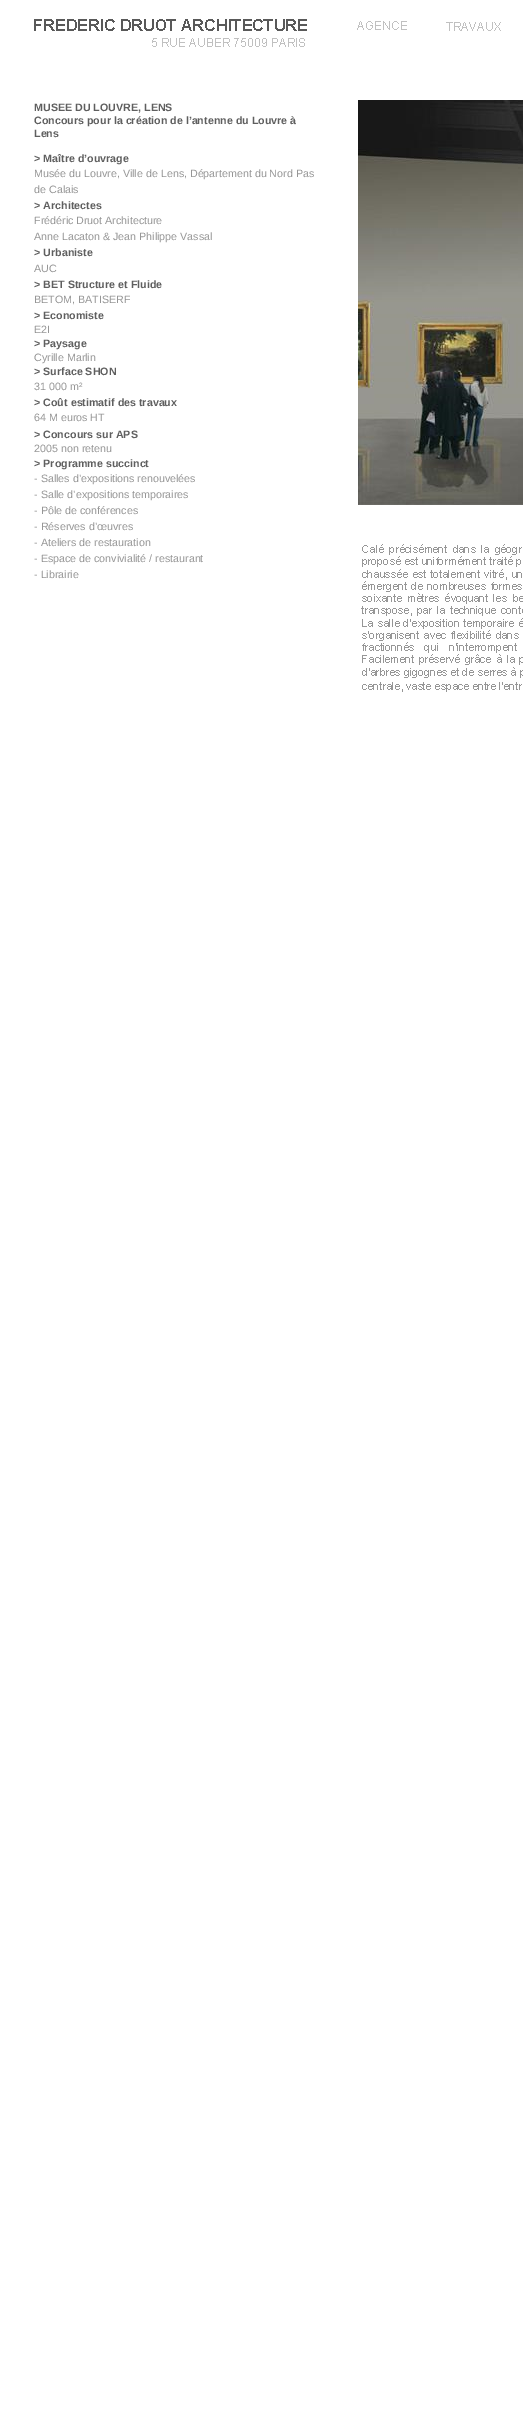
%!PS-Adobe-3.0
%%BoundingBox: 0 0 523 2424
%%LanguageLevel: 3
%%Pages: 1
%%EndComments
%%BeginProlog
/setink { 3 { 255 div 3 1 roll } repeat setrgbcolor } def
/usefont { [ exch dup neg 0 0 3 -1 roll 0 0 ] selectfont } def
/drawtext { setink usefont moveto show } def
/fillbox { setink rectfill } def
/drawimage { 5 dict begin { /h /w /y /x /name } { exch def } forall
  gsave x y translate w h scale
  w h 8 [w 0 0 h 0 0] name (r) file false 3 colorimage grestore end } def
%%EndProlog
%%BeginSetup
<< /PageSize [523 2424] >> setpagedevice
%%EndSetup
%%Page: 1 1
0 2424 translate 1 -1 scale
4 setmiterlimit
0 0 523 2424 255 255 255 fillbox
(assets/img1.rgb) 34 19 467 28 drawimage
(MUSEE DU LOUVRE, LENS) 34 111 /LiberationSans-Bold 10.7 95 95 95 drawtext
(Concours pour la création de l’antenne du Louvre à) 34 124 /LiberationSans-Bold 10.7 95 95 95 drawtext
(Lens) 34 137 /LiberationSans-Bold 10.7 95 95 95 drawtext
(> Maître d’ouvrage) 34 162 /LiberationSans-Bold 10.7 95 95 95 drawtext
(Musée du Louvre, Ville de Lens, Département du Nord Pas) 34 177 /LiberationSans-Regular 10.7 150 150 150 drawtext
(de Calais) 34 193 /LiberationSans-Regular 10.7 150 150 150 drawtext
(> Architectes) 34 209 /LiberationSans-Bold 10.7 95 95 95 drawtext
(Frédéric Druot Architecture) 34 224 /LiberationSans-Regular 10.7 150 150 150 drawtext
(Anne Lacaton & Jean Philippe Vassal) 34 240 /LiberationSans-Regular 10.7 150 150 150 drawtext
(> Urbaniste) 34 256 /LiberationSans-Bold 10.7 95 95 95 drawtext
(AUC) 34 272 /LiberationSans-Regular 10.7 150 150 150 drawtext
(> BET Structure et Fluide) 34 288 /LiberationSans-Bold 10.7 95 95 95 drawtext
(BETOM, BATISERF) 34 303 /LiberationSans-Regular 10.7 150 150 150 drawtext
(> Economiste) 34 319 /LiberationSans-Bold 10.7 95 95 95 drawtext
(E2I) 34 333 /LiberationSans-Regular 10.7 150 150 150 drawtext
(> Paysage) 34 347 /LiberationSans-Bold 10.7 95 95 95 drawtext
(Cyrille Marlin) 34 361 /LiberationSans-Regular 10.7 150 150 150 drawtext
(> Surface SHON) 34 375 /LiberationSans-Bold 10.7 95 95 95 drawtext
(31 000 m²) 34 390 /LiberationSans-Regular 10.7 150 150 150 drawtext
(> Coût estimatif des travaux) 34 406 /LiberationSans-Bold 10.7 95 95 95 drawtext
(64 M euros HT) 34 421 /LiberationSans-Regular 10.7 150 150 150 drawtext
(> Concours sur APS) 34 438 /LiberationSans-Bold 10.7 95 95 95 drawtext
(2005 non retenu) 34 452 /LiberationSans-Regular 10.7 150 150 150 drawtext
(> Programme succinct) 34 467 /LiberationSans-Bold 10.7 95 95 95 drawtext
(- Salles d’expositions renouvelées) 34 482 /LiberationSans-Regular 10.7 150 150 150 drawtext
(- Salle d’expositions temporaires) 34 498 /LiberationSans-Regular 10.7 150 150 150 drawtext
(- Pôle de conférences) 34 514 /LiberationSans-Regular 10.7 150 150 150 drawtext
(- Réserves d’œuvres) 34 530 /LiberationSans-Regular 10.7 150 150 150 drawtext
(- Ateliers de restauration) 34 546 /LiberationSans-Regular 10.7 150 150 150 drawtext
(- Espace de convivialité / restaurant) 34 562 /LiberationSans-Regular 10.7 150 150 150 drawtext
(- Librairie) 34 578 /LiberationSans-Regular 10.7 150 150 150 drawtext
(assets/img2.rgb) 358 100 165 592 drawimage
showpage
%%EOF
